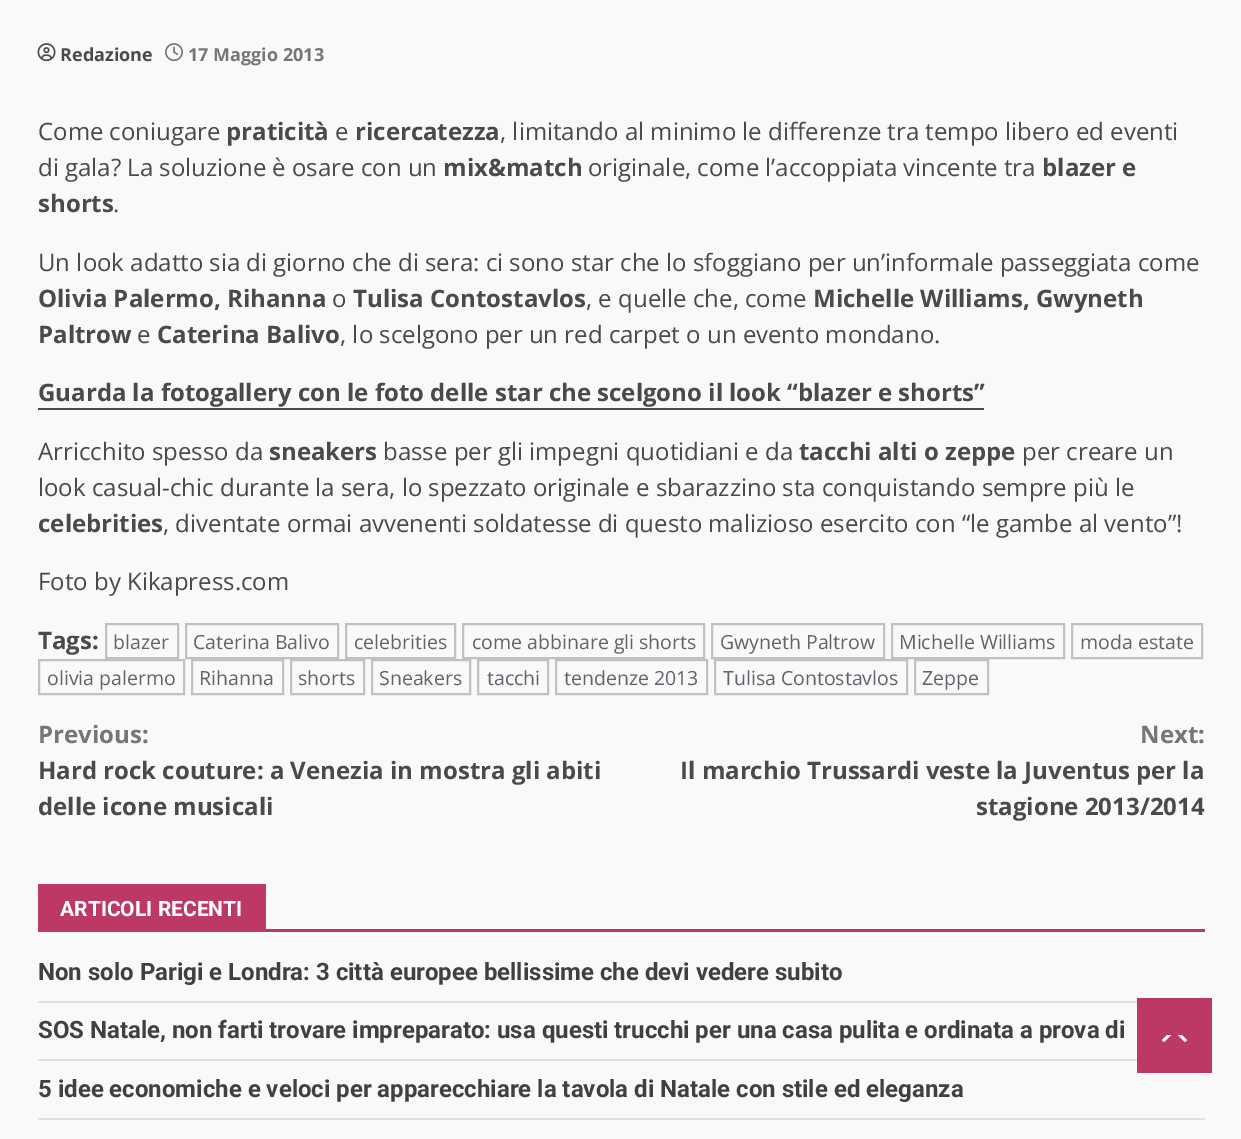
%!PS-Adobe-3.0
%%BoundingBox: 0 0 1241 1139
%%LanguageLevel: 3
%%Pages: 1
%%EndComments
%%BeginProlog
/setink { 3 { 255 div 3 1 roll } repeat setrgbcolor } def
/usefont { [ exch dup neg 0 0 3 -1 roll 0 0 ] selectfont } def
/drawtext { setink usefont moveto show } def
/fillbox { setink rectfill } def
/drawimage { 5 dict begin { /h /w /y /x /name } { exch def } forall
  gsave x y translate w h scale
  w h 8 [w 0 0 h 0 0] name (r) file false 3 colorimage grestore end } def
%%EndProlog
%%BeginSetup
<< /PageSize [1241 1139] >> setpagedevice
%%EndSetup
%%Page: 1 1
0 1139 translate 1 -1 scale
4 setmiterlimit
0 0 1241 1139 249 249 249 fillbox
(assets/img1.rgb) 37 43 19 19 drawimage
(Redazione) 60 61 /OpenSans-Bold 18 74 74 74 drawtext
(assets/img2.rgb) 165 43 18 19 drawimage
(17 Maggio 2013) 188 61 /OpenSans-Bold 18 118 118 118 drawtext
(Come coniugare) 38 140 /OpenSans-Regular 24 74 74 74 drawtext
(praticità) 226 140 /OpenSans-Bold 24 74 74 74 drawtext
(e) 335 140 /OpenSans-Regular 24 74 74 74 drawtext
(ricercatezza) 355 140 /OpenSans-Bold 24 74 74 74 drawtext
(, limitando al minimo le differenze tra tempo libero ed eventi) 500 140 /OpenSans-Regular 24 74 74 74 drawtext
(di gala? La soluzione è osare con un) 38 176 /OpenSans-Regular 24 74 74 74 drawtext
(mix&match) 443 176 /OpenSans-Bold 24 74 74 74 drawtext
(originale, come l’accoppiata vincente tra) 588 176 /OpenSans-Regular 24 74 74 74 drawtext
(blazer e) 1042 176 /OpenSans-Bold 24 74 74 74 drawtext
(shorts) 38 212 /OpenSans-Bold 24 74 74 74 drawtext
(.) 113 212 /OpenSans-Regular 24 74 74 74 drawtext
(Un look adatto sia di giorno che di sera: ci sono star che lo sfoggiano per un’informale passeggiata come) 38 271 /OpenSans-Regular 24 74 74 74 drawtext
(Olivia Palermo, Rihanna) 38 307 /OpenSans-Bold 24 74 74 74 drawtext
(o) 332 307 /OpenSans-Regular 24 74 74 74 drawtext
(Tulisa Contostavlos) 353 307 /OpenSans-Bold 24 74 74 74 drawtext
(, e quelle che, come) 586 307 /OpenSans-Regular 24 74 74 74 drawtext
(Michelle Williams, Gwyneth) 813 307 /OpenSans-Bold 24 74 74 74 drawtext
(Paltrow) 38 343 /OpenSans-Bold 24 74 74 74 drawtext
(e) 137 343 /OpenSans-Regular 24 74 74 74 drawtext
(Caterina Balivo) 157 343 /OpenSans-Bold 24 74 74 74 drawtext
(, lo scelgono per un red carpet o un evento mondano.) 340 343 /OpenSans-Regular 24 74 74 74 drawtext
(Guarda la fotogallery con le foto delle star che scelgono il look “blazer e shorts”) 38 401 /OpenSans-Bold 24 74 74 74 drawtext
38 408 946 2 74 74 74 fillbox
(Arricchito spesso da) 38 460 /OpenSans-Regular 24 74 74 74 drawtext
(sneakers) 269 460 /OpenSans-Bold 24 74 74 74 drawtext
(basse per gli impegni quotidiani e da) 383 460 /OpenSans-Regular 24 74 74 74 drawtext
(tacchi alti o zeppe) 799 460 /OpenSans-Bold 24 74 74 74 drawtext
(per creare un) 1022 460 /OpenSans-Regular 24 74 74 74 drawtext
(look casual-chic durante la sera, lo spezzato originale e sbarazzino sta conquistando sempre più le) 38 496 /OpenSans-Regular 24 74 74 74 drawtext
(celebrities) 38 532 /OpenSans-Bold 24 74 74 74 drawtext
(, diventate ormai avvenenti soldatesse di questo malizioso esercito con “le gambe al vento”!) 163 532 /OpenSans-Regular 24 74 74 74 drawtext
(Foto by Kikapress.com) 38 590 /OpenSans-Regular 24 74 74 74 drawtext
(Tags:) 38 649 /OpenSans-Bold 24 74 74 74 drawtext
191 193 195 setink
2 setlinewidth
106 624 72 34 rectstroke
(blazer) 113 649 /OpenSans-Regular 19.5 95 99 106 drawtext
191 193 195 setink
186 624 152 34 rectstroke
(Caterina Balivo) 193 649 /OpenSans-Regular 19.5 95 99 106 drawtext
191 193 195 setink
346 624 109 34 rectstroke
(celebrities) 354 649 /OpenSans-Regular 19.5 95 99 106 drawtext
191 193 195 setink
463 624 241 34 rectstroke
(come abbinare gli shorts) 472 649 /OpenSans-Regular 19.5 95 99 106 drawtext
191 193 195 setink
712 624 172 34 rectstroke
(Gwyneth Paltrow) 720 649 /OpenSans-Regular 19.5 95 99 106 drawtext
191 193 195 setink
892 624 172 34 rectstroke
(Michelle Williams) 899 649 /OpenSans-Regular 19.5 95 99 106 drawtext
191 193 195 setink
1072 624 130 34 rectstroke
(moda estate) 1080 649 /OpenSans-Regular 19.5 95 99 106 drawtext
191 193 195 setink
39 660 145 34 rectstroke
(olivia palermo) 47 685 /OpenSans-Regular 19.5 95 99 106 drawtext
191 193 195 setink
192 660 91 34 rectstroke
(Rihanna) 199 685 /OpenSans-Regular 19.5 95 99 106 drawtext
191 193 195 setink
291 660 73 34 rectstroke
(shorts) 298 685 /OpenSans-Regular 19.5 95 99 106 drawtext
191 193 195 setink
372 660 98 34 rectstroke
(Sneakers) 379 685 /OpenSans-Regular 19.5 95 99 106 drawtext
191 193 195 setink
478 660 70 34 rectstroke
(tacchi) 487 685 /OpenSans-Regular 19.5 95 99 106 drawtext
191 193 195 setink
556 660 151 34 rectstroke
(tendenze 2013) 564 685 /OpenSans-Regular 19.5 95 99 106 drawtext
191 193 195 setink
715 660 192 34 rectstroke
(Tulisa Contostavlos) 723 685 /OpenSans-Regular 19.5 95 99 106 drawtext
191 193 195 setink
915 660 73 34 rectstroke
(Zeppe) 922 685 /OpenSans-Regular 19.5 95 99 106 drawtext
(Previous:) 38 743 /OpenSans-Bold 24 118 118 118 drawtext
(Hard rock couture: a Venezia in mostra gli abiti) 38 779 /OpenSans-Bold 24 74 74 74 drawtext
(delle icone musicali) 38 815 /OpenSans-Bold 24 74 74 74 drawtext
(Next:) 1140 743 /OpenSans-Bold 24 118 118 118 drawtext
(Il marchio Trussardi veste la Juventus per la) 680 779 /OpenSans-Bold 24 74 74 74 drawtext
(stagione 2013/2014) 976 815 /OpenSans-Bold 24 74 74 74 drawtext
38 929 1167 3 188 56 102 fillbox
38 884 228 45 188 56 102 fillbox
(ARTICOLI RECENTI) 60 916 /Roboto-Bold 21 255 255 255 drawtext
38 1001 1099 2 224 224 224 fillbox
(Non solo Parigi e Londra: 3 città europee bellissime che devi vedere subito) 38 980 /Roboto-Bold 24 64 64 64 drawtext
38 1059 1099 2 224 224 224 fillbox
(SOS Natale, non farti trovare impreparato: usa questi trucchi per una casa pulita e ordinata a prova di) 38 1038 /Roboto-Bold 24 64 64 64 drawtext
38 1118 1167 2 224 224 224 fillbox
(5 idee economiche e veloci per apparecchiare la tavola di Natale con stile ed eleganza) 38 1097 /Roboto-Bold 24 64 64 64 drawtext
1137 998 75 75 188 56 102 fillbox
255 255 255 setink
1167 1042.5 moveto 1182 1042.5 lineto 1184 1042.5 1186 1041.5 1187 1040 curveto 1182 1035 lineto 1167 1035 lineto 1162 1040 lineto 1163 1041.5 1165 1042.5 1167 1042.5 curveto closepath fill
188 56 102 setink
1189.5 1047 moveto 1159.5 1047 lineto 1174.5 1032 lineto closepath fill
showpage
%%EOF
